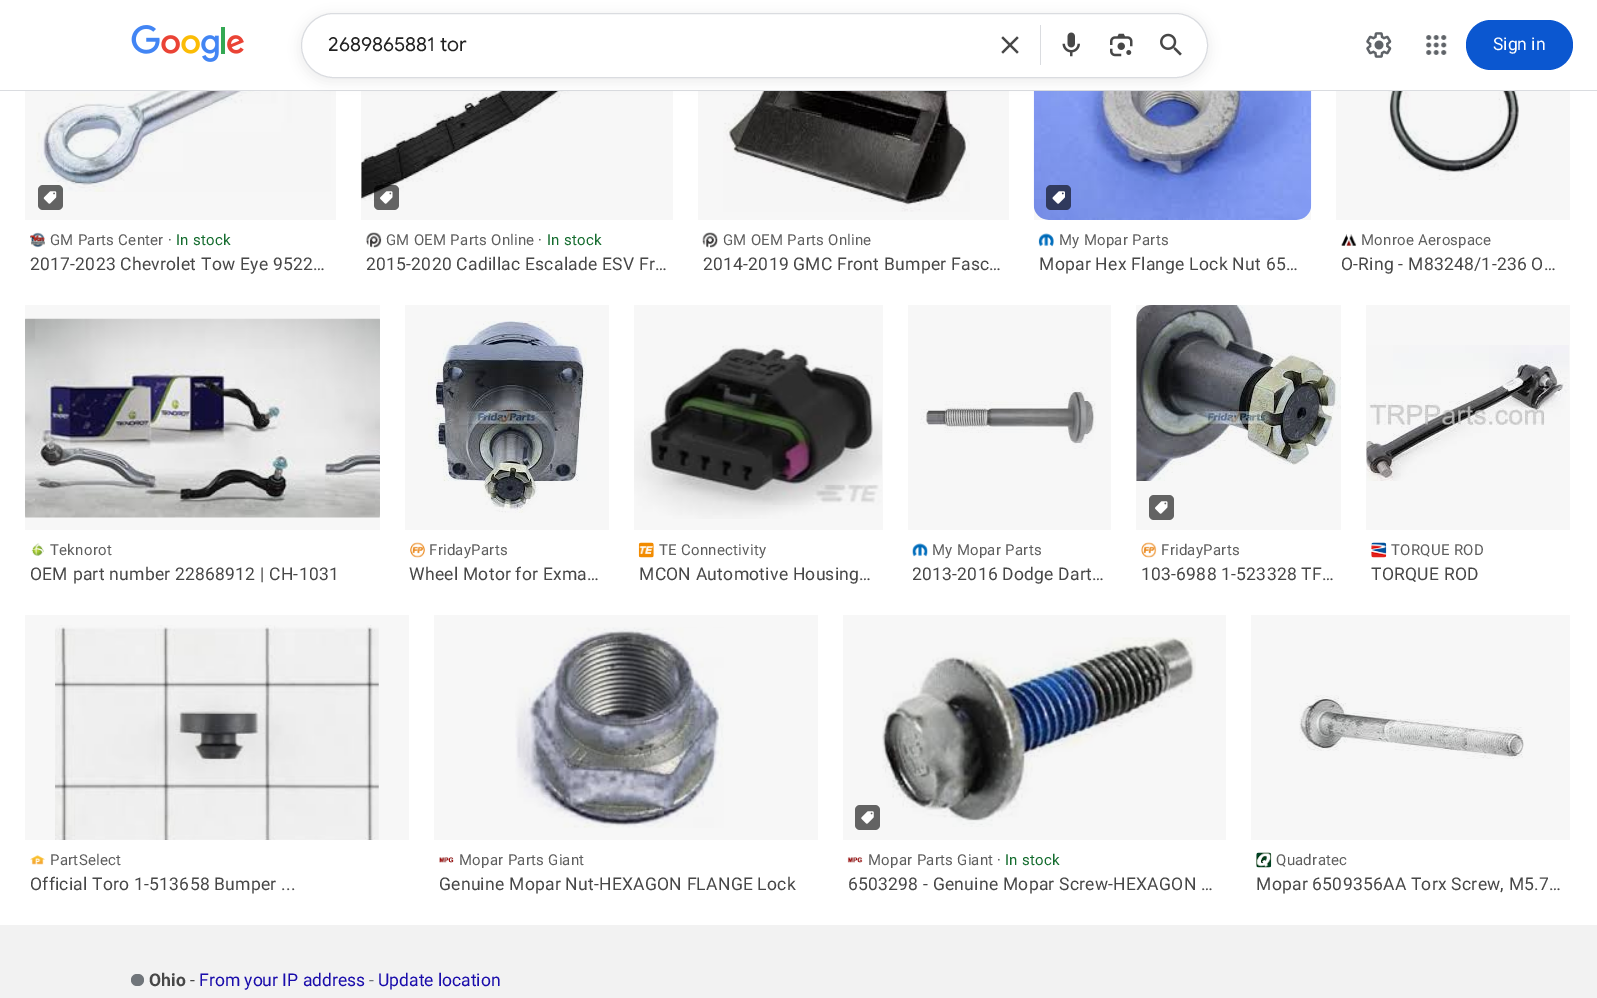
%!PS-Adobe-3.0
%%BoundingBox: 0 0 1597 998
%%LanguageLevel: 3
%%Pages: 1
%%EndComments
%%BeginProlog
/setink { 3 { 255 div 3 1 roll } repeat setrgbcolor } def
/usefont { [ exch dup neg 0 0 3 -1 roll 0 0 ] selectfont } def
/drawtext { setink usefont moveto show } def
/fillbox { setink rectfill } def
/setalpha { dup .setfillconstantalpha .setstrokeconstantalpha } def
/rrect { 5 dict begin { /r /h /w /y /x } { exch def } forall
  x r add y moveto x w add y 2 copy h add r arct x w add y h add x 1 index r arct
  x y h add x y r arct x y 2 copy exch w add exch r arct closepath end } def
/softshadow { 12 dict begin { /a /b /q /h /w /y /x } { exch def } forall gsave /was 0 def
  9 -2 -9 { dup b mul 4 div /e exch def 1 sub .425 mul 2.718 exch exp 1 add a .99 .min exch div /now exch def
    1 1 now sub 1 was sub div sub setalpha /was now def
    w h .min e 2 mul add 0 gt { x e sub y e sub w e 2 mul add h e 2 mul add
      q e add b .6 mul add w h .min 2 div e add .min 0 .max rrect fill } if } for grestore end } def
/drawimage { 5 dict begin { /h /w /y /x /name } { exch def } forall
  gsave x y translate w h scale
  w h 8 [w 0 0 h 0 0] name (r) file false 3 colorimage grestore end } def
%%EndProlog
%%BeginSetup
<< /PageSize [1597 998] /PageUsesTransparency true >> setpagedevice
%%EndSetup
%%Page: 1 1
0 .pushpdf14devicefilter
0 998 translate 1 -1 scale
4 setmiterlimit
0 0 1597 998 255 255 255 fillbox
0 90 1597 1 218 220 224 fillbox
(assets/img1.rgb) 131 25 113 37 drawimage
(assets/img8.rgb) 36 91 295 101 drawimage
0.03 setalpha
25 91 311 129 0 0 0 fillbox
1 setalpha
(assets/img11.rgb) 361 91 308 110 drawimage
0.03 setalpha
361 91 312 129 0 0 0 fillbox
1 setalpha
(assets/img14.rgb) 723 91 247 121 drawimage
0.03 setalpha
698 91 311 129 0 0 0 fillbox
1 setalpha
(assets/img16.rgb) 1033 91 279 129 drawimage
0.03 setalpha
1034 91 277 129 0 0 0 fillbox
1 setalpha
31 31 31 setink
301 16 907 65 32.5 6 0.08 softshadow
255 255 255 setink
301.5 13.5 906 64 32 rrect gsave fill grestore
218 220 224 setink
stroke
(2689865881 tor) 328 51 /GoogleSans-Regular 20 33 33 33 drawtext
(assets/img2.rgb) 1001 36 18 18 drawimage
1040 25 1 40 218 220 224 fillbox
(assets/img3.rgb) 1062 32 18 25 drawimage
(assets/img4.rgb) 1110 33 23 24 drawimage
(assets/img5.rgb) 1160 33 22 23 drawimage
(assets/img6.rgb) 1366 32 26 26 drawimage
(assets/img7.rgb) 1426 35 21 20 drawimage
11 87 208 setink
1466 20 107 50 25 rrect fill
(Sign in) 1493 50 /Roboto-Regular 17.5 255 255 255 drawtext
0.6 setalpha
0 0 0 setink
38 185 25 25 5 rrect fill
1 setalpha
(assets/img9.rgb) 43 191 14 13 drawimage
(assets/img10.rgb) 30 232 15 16 drawimage
/Roboto-Regular 15 usefont
94 94 94 setink
50 245 moveto 0.25 0 (GM Parts Center ·) ashow
20 108 46 setink
176 245 moveto 0.25 0 (In stock) ashow
/Roboto-Regular 17.5 usefont
71 71 71 setink
30 270 moveto 0.25 0 (2017-2023 Chevrolet Tow Eye 9522…) ashow
0.6 setalpha
0 0 0 setink
374 185 25 25 5 rrect fill
1 setalpha
(assets/img12.rgb) 380 191 13 13 drawimage
(assets/img13.rgb) 366 232 16 16 drawimage
/Roboto-Regular 15 usefont
94 94 94 setink
386 245 moveto 0.25 0 (GM OEM Parts Online ·) ashow
20 108 46 setink
547 245 moveto 0.25 0 (In stock) ashow
/Roboto-Regular 17.5 usefont
71 71 71 setink
366 270 moveto 0.25 0 (2015-2020 Cadillac Escalade ESV Fr…) ashow
(assets/img15.rgb) 702 232 16 16 drawimage
/Roboto-Regular 15 usefont
94 94 94 setink
723 245 moveto 0.25 0 (GM OEM Parts Online) ashow
/Roboto-Regular 17.5 usefont
71 71 71 setink
703 270 moveto 0.25 0 (2014-2019 GMC Front Bumper Fasc…) ashow
0.6 setalpha
0 0 0 setink
1046 185 25 25 5 rrect fill
1 setalpha
(assets/img17.rgb) 1052 191 13 13 drawimage
(assets/img18.rgb) 1038 233 16 14 drawimage
/Roboto-Regular 15 usefont
94 94 94 setink
1059 245 moveto 0.25 0 (My Mopar Parts) ashow
/Roboto-Regular 17.5 usefont
71 71 71 setink
1039 270 moveto 0.25 0 (Mopar Hex Flange Lock Nut 65…) ashow
(assets/img19.rgb) 1388 91 131 89 drawimage
0.03 setalpha
1336 91 234 129 0 0 0 fillbox
1 setalpha
(assets/img20.rgb) 1341 234 16 12 drawimage
/Roboto-Regular 15 usefont
94 94 94 setink
1361 245 moveto 0.25 0 (Monroe Aerospace) ashow
/Roboto-Regular 17.5 usefont
71 71 71 setink
1341 270 moveto 0.25 0 (O-Ring - M83248/1-236 O…) ashow
(assets/img21.rgb) 25 318 355 200 drawimage
0.03 setalpha
25 305 355 225 0 0 0 fillbox
1 setalpha
(assets/img22.rgb) 31 543 13 13 drawimage
/Roboto-Regular 15 usefont
94 94 94 setink
50 555 moveto 0.25 0 (Teknorot) ashow
/Roboto-Regular 17.5 usefont
71 71 71 setink
30 580 moveto 0.25 0 (OEM part number 22868912 | CH-1031) ashow
(assets/img23.rgb) 428 321 159 192 drawimage
0.03 setalpha
405 305 204 225 0 0 0 fillbox
1 setalpha
(assets/img24.rgb) 410 542 15 16 drawimage
/Roboto-Regular 15 usefont
94 94 94 setink
429 555 moveto 0.25 0 (FridayParts) ashow
/Roboto-Regular 17.5 usefont
71 71 71 setink
409 580 moveto 0.25 0 (Wheel Motor for Exma…) ashow
(assets/img25.rgb) 634 345 248 174 drawimage
0.03 setalpha
634 305 249 225 0 0 0 fillbox
1 setalpha
(assets/img26.rgb) 638 542 16 16 drawimage
/Roboto-Regular 15 usefont
94 94 94 setink
659 555 moveto 0.25 0 (TE Connectivity) ashow
/Roboto-Regular 17.5 usefont
71 71 71 setink
639 580 moveto 0.25 0 (MCON Automotive Housing…) ashow
(assets/img27.rgb) 920 387 176 62 drawimage
0.03 setalpha
908 305 203 225 0 0 0 fillbox
1 setalpha
(assets/img28.rgb) 912 543 16 14 drawimage
/Roboto-Regular 15 usefont
94 94 94 setink
932 555 moveto 0.25 0 (My Mopar Parts) ashow
gsave
913 560 193 28 rectclip
/Roboto-Regular 17.5 usefont
71 71 71 setink
912 580 moveto 0.25 0 (2013-2016 Dodge Dart…) ashow
grestore
(assets/img29.rgb) 1136 305 205 176 drawimage
0.03 setalpha
1136 305 205 225 0 0 0 fillbox
1 setalpha
99 99 99 setink
1149 495 25 25 5 rrect fill
(assets/img30.rgb) 1155 501 13 13 drawimage
(assets/img31.rgb) 1141 542 16 16 drawimage
94 94 94 setink
1161 555 moveto 0.25 0 (FridayParts) ashow
/Roboto-Regular 17.5 usefont
71 71 71 setink
1141 580 moveto 0.25 0 (103-6988 1-523328 TF…) ashow
(assets/img32.rgb) 1366 345 203 136 drawimage
0.03 setalpha
1366 305 204 225 0 0 0 fillbox
1 setalpha
(assets/img33.rgb) 1371 542 16 16 drawimage
/Roboto-Regular 15 usefont
94 94 94 setink
1391 555 moveto 0.25 0 (TORQUE ROD) ashow
/Roboto-Regular 17.5 usefont
71 71 71 setink
1371 580 moveto 0.25 0 (TORQUE ROD) ashow
(assets/img34.rgb) 55 625 324 215 drawimage
0.03 setalpha
25 615 384 225 0 0 0 fillbox
1 setalpha
(assets/img35.rgb) 30 855 15 10 drawimage
/Roboto-Regular 15 usefont
94 94 94 setink
50 865 moveto 0.25 0 (PartSelect) ashow
/Roboto-Regular 17.5 usefont
71 71 71 setink
30 890 moveto 0.25 0 (Official Toro 1-513658 Bumper ...) ashow
(assets/img36.rgb) 515 627 209 201 drawimage
0.03 setalpha
434 615 384 225 0 0 0 fillbox
1 setalpha
(assets/img37.rgb) 439 857 15 6 drawimage
/Roboto-Regular 15 usefont
94 94 94 setink
459 865 moveto 0.25 0 (Mopar Parts Giant) ashow
/Roboto-Regular 17.5 usefont
71 71 71 setink
439 890 moveto 0.25 0 (Genuine Mopar Nut-HEXAGON FLANGE Lock) ashow
(assets/img38.rgb) 882 637 314 190 drawimage
0.03 setalpha
843 615 383 225 0 0 0 fillbox
1 setalpha
99 99 99 setink
855 805 25 25 5 rrect fill
(assets/img39.rgb) 861 811 13 13 drawimage
(assets/img40.rgb) 847 857 16 6 drawimage
/Roboto-Regular 15 usefont
94 94 94 setink
868 865 moveto 0.25 0 (Mopar Parts Giant ·) ashow
20 108 46 setink
1005 865 moveto 0.25 0 (In stock) ashow
/Roboto-Regular 17.5 usefont
71 71 71 setink
848 890 moveto 0.25 0 (6503298 - Genuine Mopar Screw-HEXAGON …) ashow
(assets/img41.rgb) 1299 695 225 64 drawimage
0.03 setalpha
1251 615 319 225 0 0 0 fillbox
1 setalpha
(assets/img42.rgb) 1256 852 16 16 drawimage
/Roboto-Regular 15 usefont
94 94 94 setink
1276 865 moveto 0.25 0 (Quadratec) ashow
/Roboto-Regular 17.5 usefont
71 71 71 setink
1256 890 moveto 0.25 0 (Mopar 6509356AA Torx Screw, M5.7…) ashow
0 925 1597 73 242 242 242 fillbox
112 117 122 setink
131 974 13 12 6 rrect fill
(Ohio) 149 986 /Roboto-Bold 17.5 71 71 71 drawtext
(-) 190 986 /Roboto-Regular 17.5 71 71 71 drawtext
(From your IP address) 199 986 /Roboto-Regular 17.5 26 13 171 drawtext
(-) 369 986 /Roboto-Regular 17.5 112 117 122 drawtext
(Update location) 378 986 /Roboto-Regular 17.5 26 13 171 drawtext
.poppdf14devicefilter showpage
%%EOF
